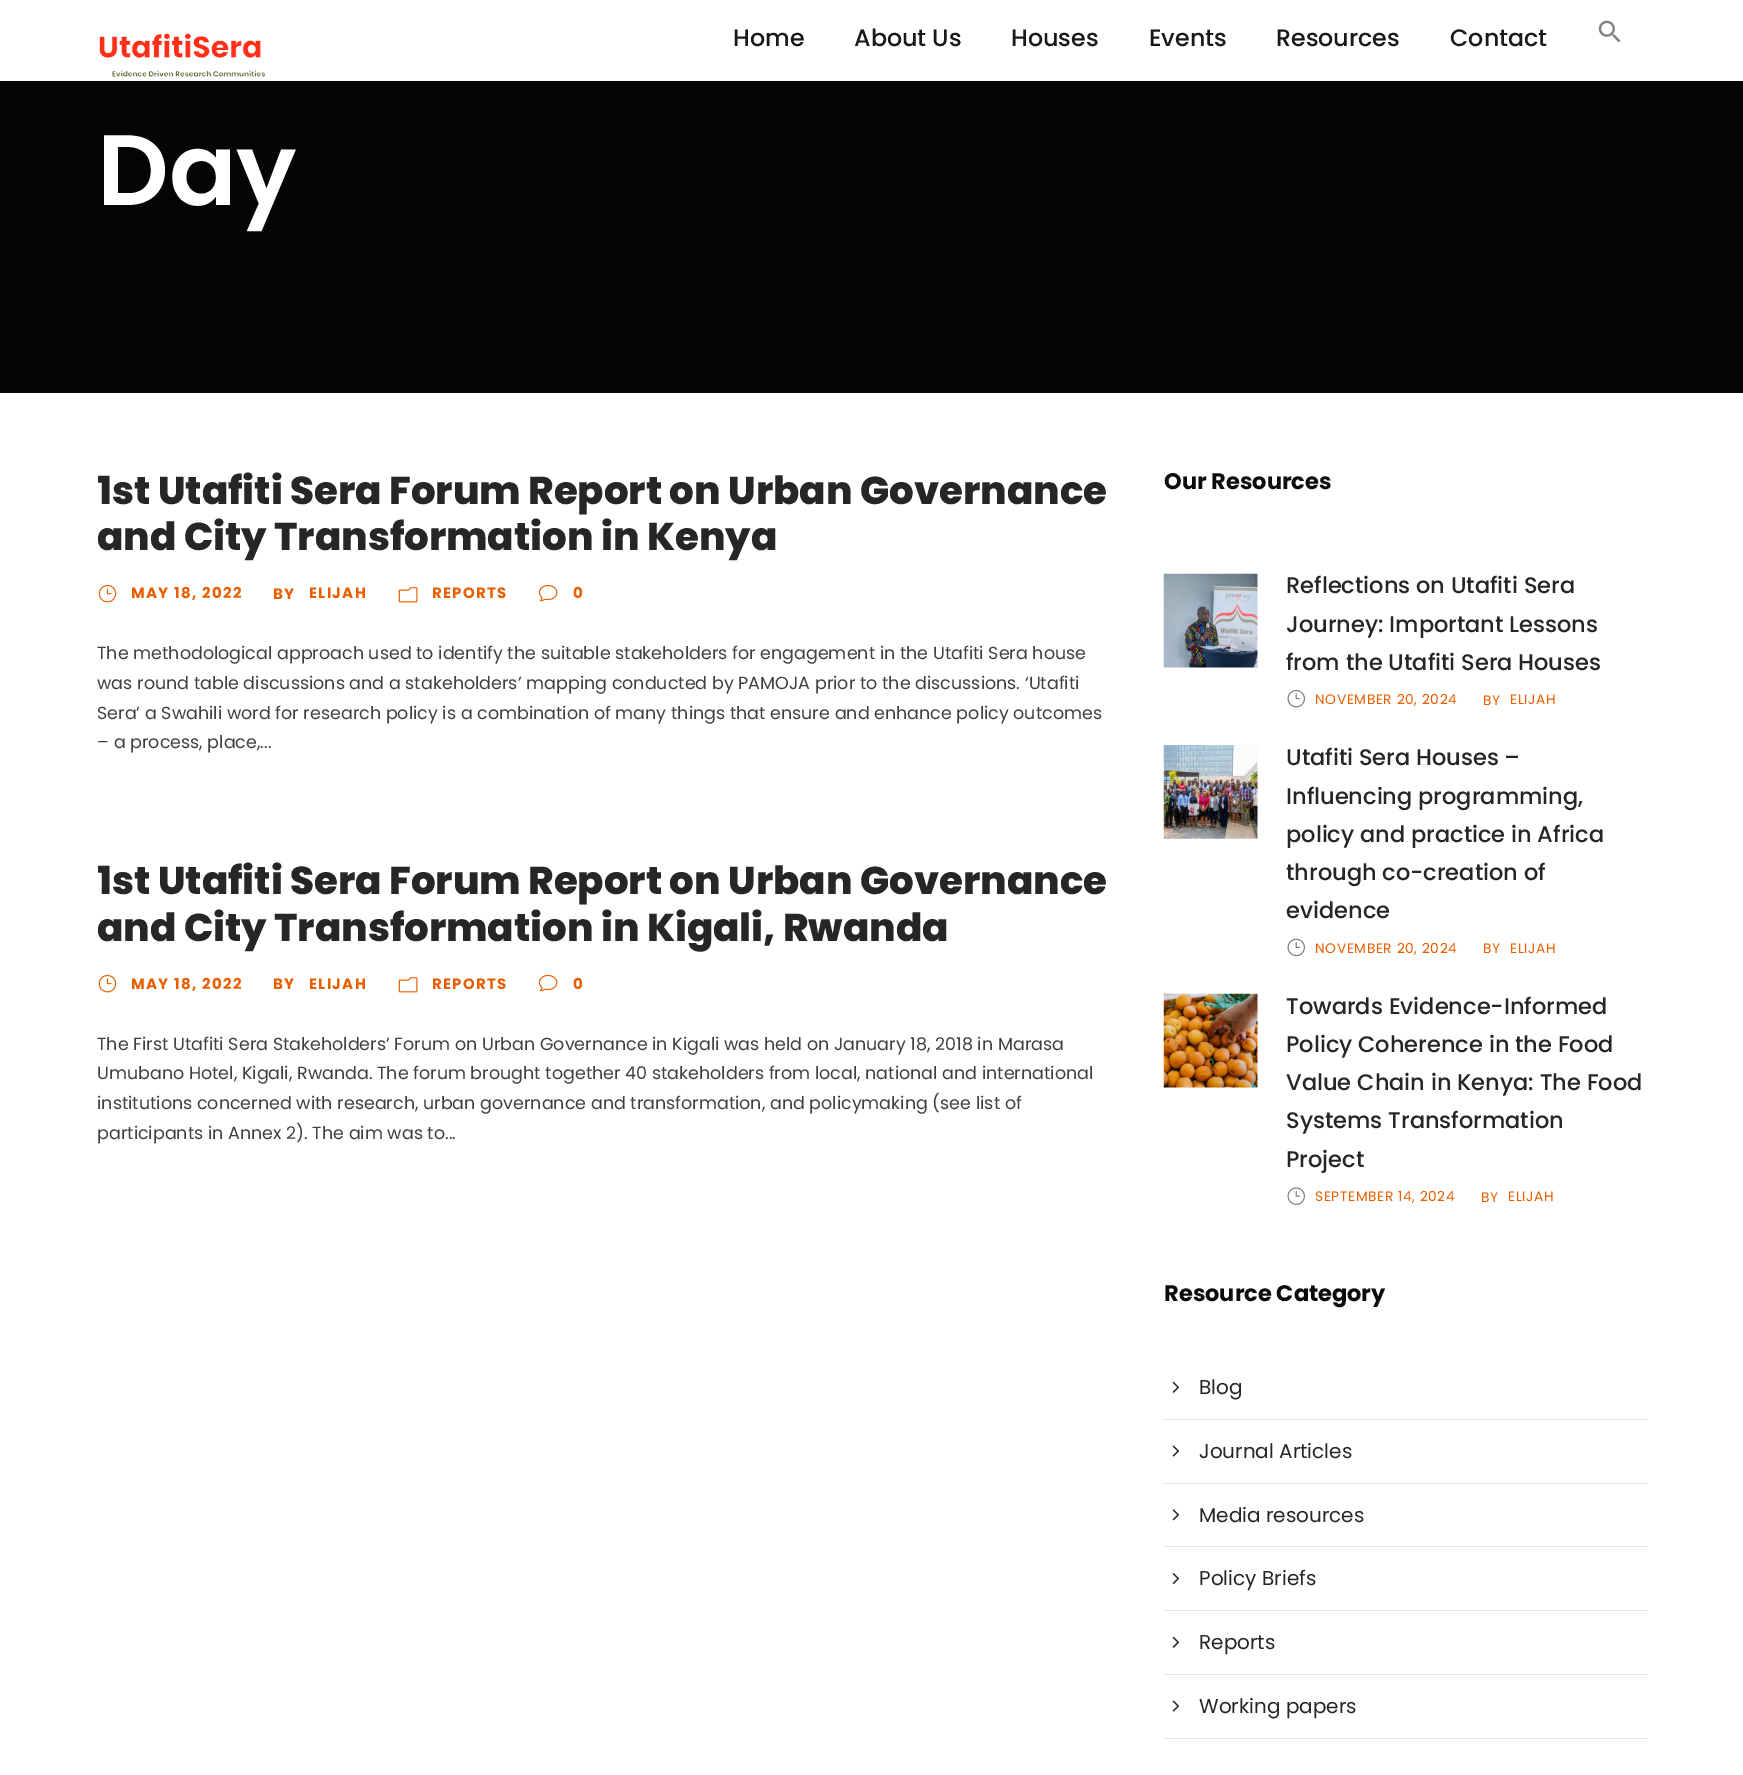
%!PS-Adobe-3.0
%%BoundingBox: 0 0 1743 1775
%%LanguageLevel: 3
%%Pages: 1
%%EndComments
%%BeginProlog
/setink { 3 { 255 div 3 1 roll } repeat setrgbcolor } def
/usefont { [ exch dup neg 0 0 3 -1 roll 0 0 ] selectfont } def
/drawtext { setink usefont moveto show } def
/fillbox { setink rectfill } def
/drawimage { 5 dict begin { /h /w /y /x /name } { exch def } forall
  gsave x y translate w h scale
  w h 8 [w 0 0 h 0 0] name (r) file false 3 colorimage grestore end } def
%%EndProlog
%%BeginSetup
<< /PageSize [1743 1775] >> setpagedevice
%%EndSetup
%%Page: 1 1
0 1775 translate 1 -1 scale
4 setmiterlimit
0 0 1743 1775 255 255 255 fillbox
(assets/img1.rgb) 99 33 166 44 drawimage
(Home) 733 46 /Poppins-Medium 23.75 25 25 25 drawtext
(About Us) 854 46 /Poppins-Medium 23.75 25 25 25 drawtext
(Houses) 1011 46 /Poppins-Medium 23.75 25 25 25 drawtext
(Events) 1149 46 /Poppins-Medium 23.75 25 25 25 drawtext
(Resources) 1276 46 /Poppins-Medium 23.75 25 25 25 drawtext
(Contact) 1450 46 /Poppins-Medium 23.75 25 25 25 drawtext
(assets/img2.rgb) 1598 20 23 23 drawimage
0 81 1743 312 5 5 5 fillbox
(Day) 97 205 /Poppins-SemiBold 100 255 255 255 drawtext
gsave
98 468 1016 140 rectclip
(1st Utafiti Sera Forum Report on Urban Governance) 97 504 /Poppins-ExtraBold 38.75 38 38 38 drawtext
(and City Transformation in Kenya) 97 550 /Poppins-ExtraBold 38.75 38 38 38 drawtext
grestore
(assets/img3.rgb) 98 584 19 19 drawimage
/Poppins-Bold 15 usefont
232 94 0 setink
131 598 moveto 1.25 0 (MAY 18, 2022) ashow
273 599 moveto 1.25 0 (BY) ashow
309 598 moveto 1.25 0 (ELIJAH) ashow
(assets/img4.rgb) 398 587 20 16 drawimage
432 598 moveto 1.25 0 (REPORTS) ashow
(assets/img5.rgb) 538 584 20 18 drawimage
573 598 moveto 1.25 0 (0) ashow
(The methodological approach used to identify the suitable stakeholders for engagement in the Utafiti Sera house) 97 659 /Poppins-Regular 17.5 63 64 63 drawtext
(was round table discussions and a stakeholders’ mapping conducted by PAMOJA prior to the discussions. ‘Utafiti) 97 689 /Poppins-Regular 17.5 63 64 63 drawtext
(Sera’ a Swahili word for research policy is a combination of many things that ensure and enhance policy outcomes) 97 719 /Poppins-Regular 17.5 63 64 63 drawtext
(– a process, place,...) 97 748 /Poppins-Regular 17.5 63 64 63 drawtext
gsave
98 858 1016 141 rectclip
(1st Utafiti Sera Forum Report on Urban Governance) 97 894 /Poppins-ExtraBold 38.75 38 38 38 drawtext
(and City Transformation in Kigali, Rwanda) 97 941 /Poppins-ExtraBold 38.75 38 38 38 drawtext
grestore
(assets/img3.rgb) 98 974 19 19 drawimage
/Poppins-Bold 15 usefont
232 94 0 setink
131 989 moveto 1.25 0 (MAY 18, 2022) ashow
273 989 moveto 1.25 0 (BY) ashow
309 989 moveto 1.25 0 (ELIJAH) ashow
(assets/img4.rgb) 398 977 20 16 drawimage
432 989 moveto 1.25 0 (REPORTS) ashow
(assets/img5.rgb) 538 974 20 18 drawimage
573 989 moveto 1.25 0 (0) ashow
(The First Utafiti Sera Stakeholders’ Forum on Urban Governance in Kigali was held on January 18, 2018 in Marasa) 97 1050 /Poppins-Regular 17.5 63 64 63 drawtext
(Umubano Hotel, Kigali, Rwanda. The forum brought together 40 stakeholders from local, national and international) 97 1079 /Poppins-Regular 17.5 63 64 63 drawtext
(institutions concerned with research, urban governance and transformation, and policymaking \(see list of) 97 1109 /Poppins-Regular 17.5 63 64 63 drawtext
(participants in Annex 2\). The aim was to...) 97 1139 /Poppins-Regular 17.5 63 64 63 drawtext
(Our Resources) 1164 489 /Poppins-Bold 22.5 12 12 12 drawtext
(assets/img6.rgb) 1163 573 95 95 drawimage
(Reflections on Utafiti Sera) 1286 593 /Poppins-Medium 22.5 38 38 38 drawtext
(Journey: Important Lessons) 1286 632 /Poppins-Medium 22.5 38 38 38 drawtext
(from the Utafiti Sera Houses) 1286 670 /Poppins-Medium 22.5 38 38 38 drawtext
(assets/img7.rgb) 1287 689 18 19 drawimage
/Poppins-Regular 13.75 usefont
232 94 0 setink
1315 704 moveto 0.6 0 (NOVEMBER 20, 2024) ashow
1483 705 moveto 0.6 0 (BY) ashow
1510 704 moveto 0.6 0 (ELIJAH) ashow
(assets/img8.rgb) 1163 745 95 94 drawimage
(Utafiti Sera Houses –) 1286 765 /Poppins-Medium 22.5 38 38 38 drawtext
(Influencing programming,) 1286 804 /Poppins-Medium 22.5 38 38 38 drawtext
(policy and practice in Africa) 1286 842 /Poppins-Medium 22.5 38 38 38 drawtext
(through co-creation of) 1286 880 /Poppins-Medium 22.5 38 38 38 drawtext
(evidence) 1286 918 /Poppins-Medium 22.5 38 38 38 drawtext
(assets/img9.rgb) 1287 938 18 19 drawimage
/Poppins-Regular 13.75 usefont
232 94 0 setink
1315 953 moveto 0.6 0 (NOVEMBER 20, 2024) ashow
1483 953 moveto 0.6 0 (BY) ashow
1510 953 moveto 0.6 0 (ELIJAH) ashow
(assets/img10.rgb) 1163 993 95 95 drawimage
(Towards Evidence-Informed) 1286 1014 /Poppins-Medium 22.5 38 38 38 drawtext
(Policy Coherence in the Food) 1286 1052 /Poppins-Medium 22.5 38 38 38 drawtext
(Value Chain in Kenya: The Food) 1286 1090 /Poppins-Medium 22.5 38 38 38 drawtext
(Systems Transformation) 1286 1128 /Poppins-Medium 22.5 38 38 38 drawtext
(Project) 1286 1167 /Poppins-Medium 22.5 38 38 38 drawtext
(assets/img11.rgb) 1287 1187 18 18 drawimage
/Poppins-Regular 13.75 usefont
232 94 0 setink
1315 1201 moveto 0.6 0 (SEPTEMBER 14, 2024) ashow
1481 1202 moveto 0.6 0 (BY) ashow
1508 1201 moveto 0.6 0 (ELIJAH) ashow
(Resource Category) 1164 1301 /Poppins-Bold 22.5 12 12 12 drawtext
1164 1419 484 1 230 230 230 fillbox
(assets/img12.rgb) 1172 1381 8 12 drawimage
(Blog) 1199 1394 /Poppins-Regular 20 38 38 38 drawtext
1164 1483 484 1 230 230 230 fillbox
(assets/img13.rgb) 1172 1445 8 12 drawimage
(Journal Articles) 1199 1458 /Poppins-Regular 20 38 38 38 drawtext
1164 1546 484 1 230 230 230 fillbox
(assets/img14.rgb) 1172 1509 8 12 drawimage
(Media resources) 1199 1522 /Poppins-Regular 20 38 38 38 drawtext
1164 1610 484 1 230 230 230 fillbox
(assets/img15.rgb) 1172 1573 8 12 drawimage
(Policy Briefs) 1199 1585 /Poppins-Regular 20 38 38 38 drawtext
1164 1674 484 1 230 230 230 fillbox
(assets/img12.rgb) 1172 1636 8 12 drawimage
(Reports) 1199 1649 /Poppins-Regular 20 38 38 38 drawtext
1164 1738 484 1 230 230 230 fillbox
(assets/img13.rgb) 1172 1700 8 12 drawimage
(Working papers) 1199 1713 /Poppins-Regular 20 38 38 38 drawtext
showpage
%%EOF
